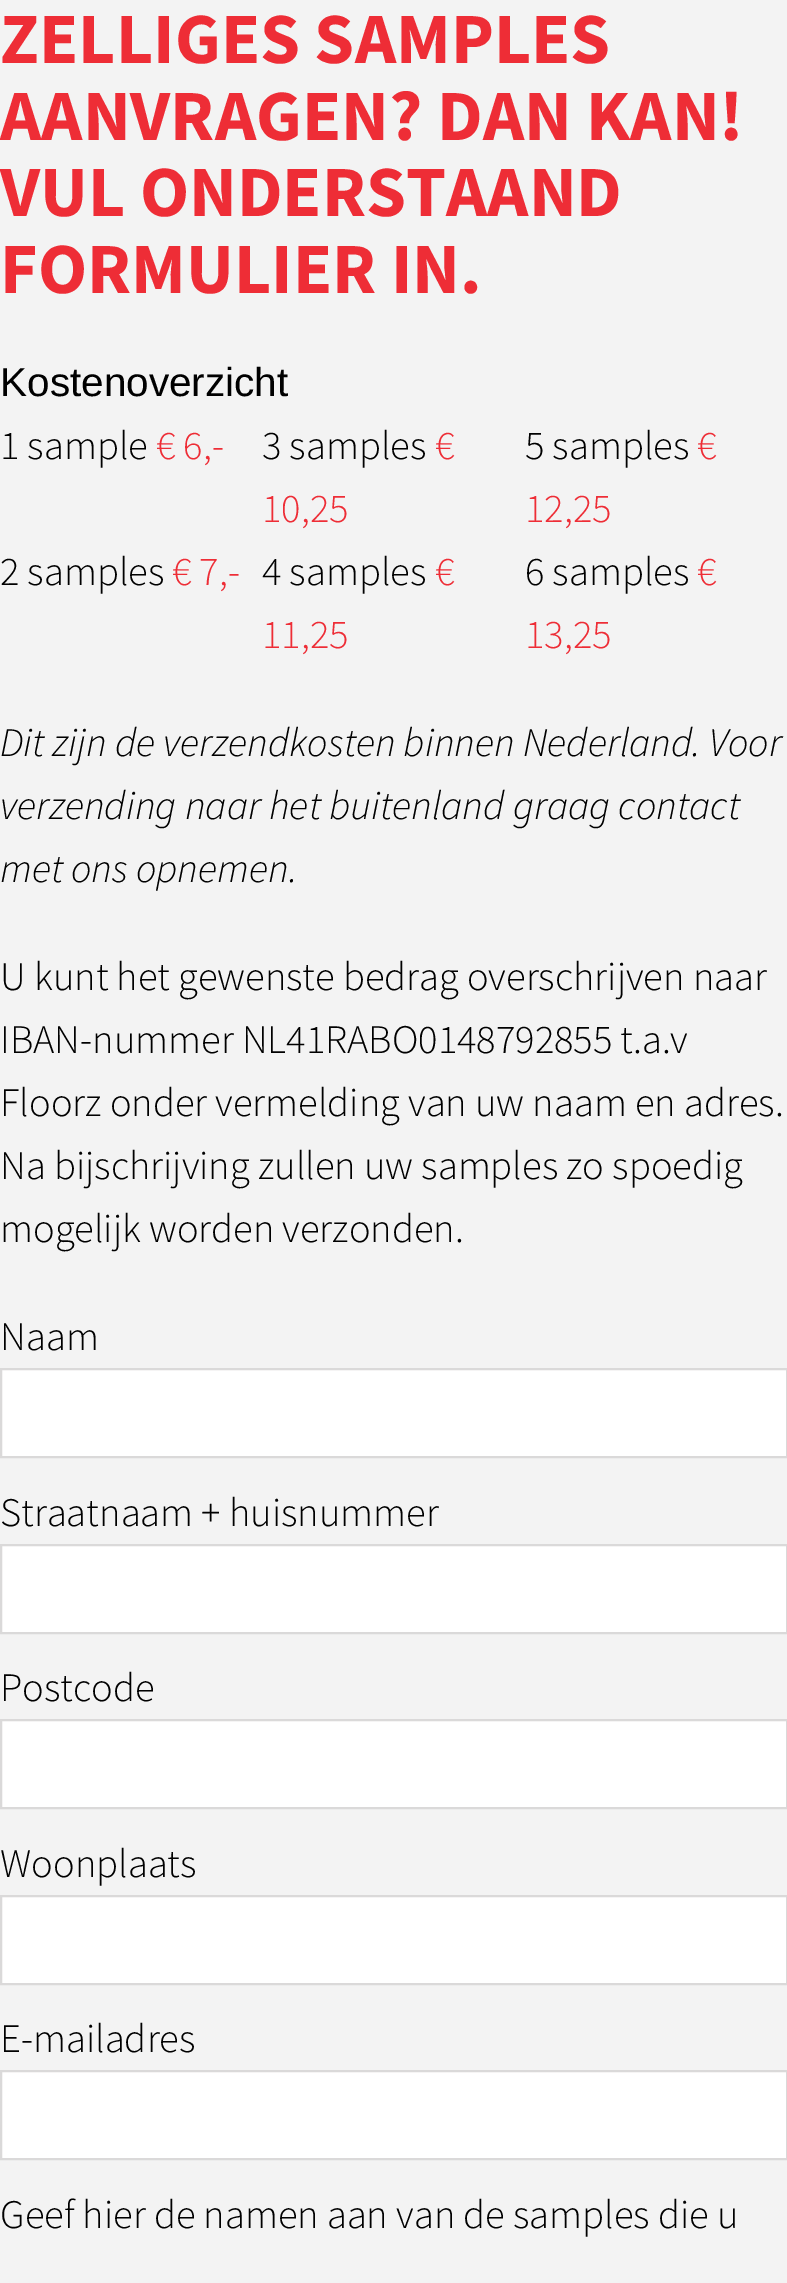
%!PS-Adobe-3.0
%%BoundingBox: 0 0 787 2283
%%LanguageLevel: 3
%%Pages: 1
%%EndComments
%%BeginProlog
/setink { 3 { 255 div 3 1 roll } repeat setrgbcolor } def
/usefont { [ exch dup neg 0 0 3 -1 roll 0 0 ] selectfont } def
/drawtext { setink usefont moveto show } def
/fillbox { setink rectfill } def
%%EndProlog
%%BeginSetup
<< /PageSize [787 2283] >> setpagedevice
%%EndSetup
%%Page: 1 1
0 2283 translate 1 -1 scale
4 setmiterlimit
0 0 787 2283 243 243 243 fillbox
(ZELLIGES SAMPLES) 0 63 /SourceSansPro-Bold 72 238 45 54 drawtext
(AANVRAGEN? DAN KAN!) 0 140 /SourceSansPro-Bold 72 238 45 54 drawtext
(VUL ONDERSTAAND) 0 216 /SourceSansPro-Bold 72 238 45 54 drawtext
(FORMULIER IN.) 0 293 /SourceSansPro-Bold 72 238 45 54 drawtext
(Kostenoverzicht) 0 396 /LiberationSans-Regular 40.5 0 0 0 drawtext
(1 sample) 0 459 /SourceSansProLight-Light 40.5 0 0 0 drawtext
(€ 6,-) 156 459 /SourceSansProLight-Light 40.5 238 45 54 drawtext
(3 samples) 262 459 /SourceSansProLight-Light 40.5 0 0 0 drawtext
(€) 435 459 /SourceSansProLight-Light 40.5 238 45 54 drawtext
(10,25) 262 522 /SourceSansProLight-Light 40.5 238 45 54 drawtext
(5 samples) 525 459 /SourceSansProLight-Light 40.5 0 0 0 drawtext
(€) 697 459 /SourceSansProLight-Light 40.5 238 45 54 drawtext
(12,25) 525 522 /SourceSansProLight-Light 40.5 238 45 54 drawtext
(2 samples) 0 585 /SourceSansProLight-Light 40.5 0 0 0 drawtext
(€ 7,-) 172 585 /SourceSansProLight-Light 40.5 238 45 54 drawtext
(4 samples) 262 585 /SourceSansProLight-Light 40.5 0 0 0 drawtext
(€) 435 585 /SourceSansProLight-Light 40.5 238 45 54 drawtext
(11,25) 262 648 /SourceSansProLight-Light 40.5 238 45 54 drawtext
(6 samples) 525 585 /SourceSansProLight-Light 40.5 0 0 0 drawtext
(€) 697 585 /SourceSansProLight-Light 40.5 238 45 54 drawtext
(13,25) 525 648 /SourceSansProLight-Light 40.5 238 45 54 drawtext
(Dit zijn de verzendkosten binnen Nederland. Voor) 0 756 /SourceSansProLight-LightItalic 40.5 0 0 0 drawtext
(verzending naar het buitenland graag contact) 0 819 /SourceSansProLight-LightItalic 40.5 0 0 0 drawtext
(met ons opnemen.) 0 882 /SourceSansProLight-LightItalic 40.5 0 0 0 drawtext
(U kunt het gewenste bedrag overschrijven naar) 0 990 /SourceSansProLight-Light 40.5 0 0 0 drawtext
(IBAN-nummer NL41RABO0148792855 t.a.v) 0 1053 /SourceSansProLight-Light 40.5 0 0 0 drawtext
(Floorz onder vermelding van uw naam en adres.) 0 1116 /SourceSansProLight-Light 40.5 0 0 0 drawtext
(Na bijschrijving zullen uw samples zo spoedig) 0 1179 /SourceSansProLight-Light 40.5 0 0 0 drawtext
(mogelijk worden verzonden.) 0 1242 /SourceSansProLight-Light 40.5 0 0 0 drawtext
(Naam) 0 1350 /SourceSansProLight-Light 40.5 0 0 0 drawtext
255 255 255 setink
1 1369 moveto 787 1369 lineto 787 1457 lineto 1 1457 lineto closepath gsave fill grestore
218 217 217 setink
2 setlinewidth
stroke
(Straatnaam + huisnummer) 0 1526 /SourceSansProLight-Light 40.5 0 0 0 drawtext
255 255 255 setink
1 1545 moveto 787 1545 lineto 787 1633 lineto 1 1633 lineto closepath gsave fill grestore
218 217 217 setink
stroke
(Postcode) 0 1701 /SourceSansProLight-Light 40.5 0 0 0 drawtext
255 255 255 setink
1 1720 moveto 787 1720 lineto 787 1808 lineto 1 1808 lineto closepath gsave fill grestore
218 217 217 setink
stroke
(Woonplaats) 0 1877 /SourceSansProLight-Light 40.5 0 0 0 drawtext
255 255 255 setink
1 1896 moveto 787 1896 lineto 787 1984 lineto 1 1984 lineto closepath gsave fill grestore
218 217 217 setink
stroke
(E-mailadres) 0 2052 /SourceSansProLight-Light 40.5 0 0 0 drawtext
255 255 255 setink
1 2071 moveto 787 2071 lineto 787 2159 lineto 1 2159 lineto closepath gsave fill grestore
218 217 217 setink
stroke
(Geef hier de namen aan van de samples die u) 0 2228 /SourceSansProLight-Light 40.5 0 0 0 drawtext
showpage
%%EOF
